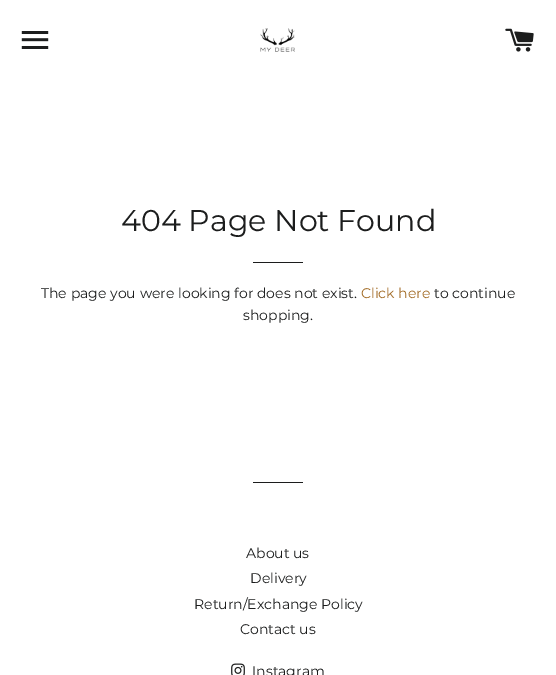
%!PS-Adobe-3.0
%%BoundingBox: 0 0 556 675
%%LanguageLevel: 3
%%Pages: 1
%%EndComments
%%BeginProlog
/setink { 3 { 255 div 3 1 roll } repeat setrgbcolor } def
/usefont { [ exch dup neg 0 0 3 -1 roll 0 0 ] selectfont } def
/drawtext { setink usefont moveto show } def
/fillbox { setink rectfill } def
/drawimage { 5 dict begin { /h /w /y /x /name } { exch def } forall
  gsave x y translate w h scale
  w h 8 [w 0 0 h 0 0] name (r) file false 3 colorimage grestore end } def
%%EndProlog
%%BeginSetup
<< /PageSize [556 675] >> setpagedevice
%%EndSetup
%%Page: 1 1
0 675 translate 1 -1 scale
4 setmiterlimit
0 0 556 675 255 255 255 fillbox
(assets/img1.rgb) 21 31 28 18 drawimage
(assets/img2.rgb) 260 28 35 24 drawimage
(assets/img3.rgb) 505 28 29 24 drawimage
(404 Page Not Found) 121 231 /Montserrat-Thin 30 28 29 29 drawtext
253 262 50 1 28 29 29 fillbox
(The page you were looking for does not exist.) 41 298 /Montserrat-Thin 14 28 29 29 drawtext
(Click here) 361 298 /Montserrat-Thin 14 162 107 37 drawtext
(to continue) 434 298 /Montserrat-Thin 14 28 29 29 drawtext
(shopping.) 243 320 /Montserrat-Thin 14 28 29 29 drawtext
253 482 50 1 28 29 29 fillbox
(About us) 246 558 /Montserrat-Thin 14 28 29 29 drawtext
(Delivery) 250 583 /Montserrat-Thin 14 28 29 29 drawtext
(Return/Exchange Policy) 194 609 /Montserrat-Thin 14 28 29 29 drawtext
(Contact us) 240 634 /Montserrat-Thin 14 28 29 29 drawtext
(assets/img4.rgb) 231 663 14 12 drawimage
(Instagram) 252 676 /Montserrat-Thin 14 28 29 29 drawtext
showpage
%%EOF
